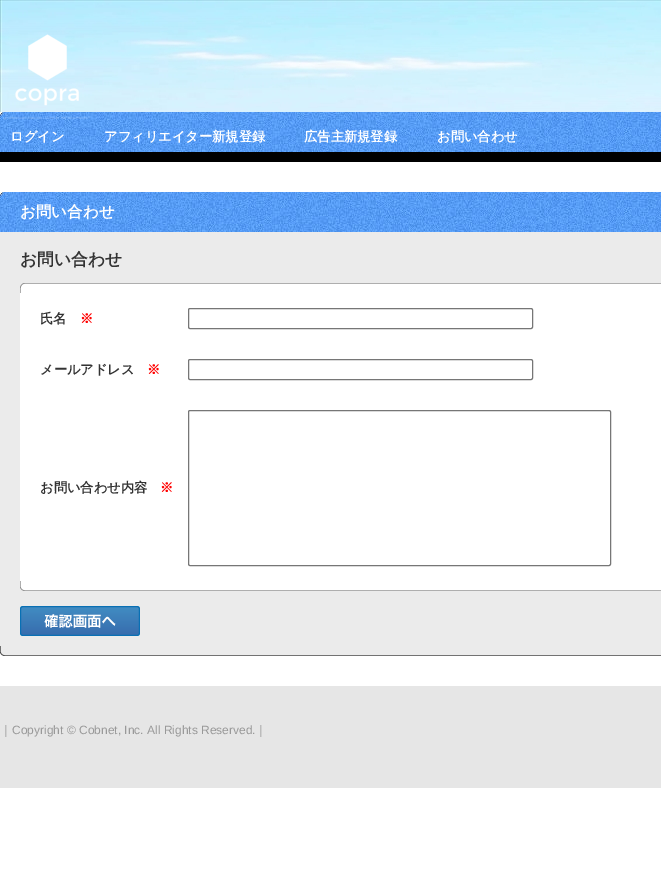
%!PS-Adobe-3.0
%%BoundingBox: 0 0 661 871
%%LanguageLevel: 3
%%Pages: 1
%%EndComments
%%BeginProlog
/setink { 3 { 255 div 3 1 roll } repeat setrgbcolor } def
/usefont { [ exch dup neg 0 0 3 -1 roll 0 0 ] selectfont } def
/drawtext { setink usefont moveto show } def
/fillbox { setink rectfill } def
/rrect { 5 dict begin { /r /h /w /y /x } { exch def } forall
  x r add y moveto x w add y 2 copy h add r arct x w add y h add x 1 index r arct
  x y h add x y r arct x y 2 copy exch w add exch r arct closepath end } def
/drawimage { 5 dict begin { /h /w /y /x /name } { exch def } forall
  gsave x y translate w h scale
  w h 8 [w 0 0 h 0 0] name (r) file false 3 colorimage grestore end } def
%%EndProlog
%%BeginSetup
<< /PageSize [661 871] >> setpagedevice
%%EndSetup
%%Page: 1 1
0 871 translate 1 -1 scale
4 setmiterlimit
0 0 661 871 255 255 255 fillbox
(assets/img1.rgb) 0 0 661 112 drawimage
(assets/img3.rgb) 0 112 661 40 drawimage
(assets/img2.rgb) 3 34 87 86 drawimage
0 152 661 10 0 0 0 fillbox
(ログイン) 10 141 /WenQuanYiZenHei-Bold 13.25 255 255 255 drawtext
(アフィリエイター新規登録) 104 141 /WenQuanYiZenHei-Bold 13.25 255 255 255 drawtext
(広告主新規登録) 304 141 /WenQuanYiZenHei-Bold 13.25 255 255 255 drawtext
(お問い合わせ) 437 141 /WenQuanYiZenHei-Bold 13.25 255 255 255 drawtext
(assets/img3.rgb) 0 192 661 40 drawimage
(お問い合わせ) 20 217 /WenQuanYiZenHei-Bold 15.5 255 255 255 drawtext
0 232 661 414 235 235 235 fillbox
(お問い合わせ) 20 265 /WenQuanYiZenHei-Bold 16.75 51 51 51 drawtext
(assets/img4.rgb) 20 283 641 10 drawimage
20 293 641 288 255 255 255 fillbox
(氏名) 40 323 /WenQuanYiZenHei-Bold 13.25 51 51 51 drawtext
(※) 80 323 /WenQuanYiZenHei-Bold 13.25 255 0 0 drawtext
118 118 118 setink
188.5 308.5 344 20 1.5 rrect stroke
(メールアドレス) 40 374 /WenQuanYiZenHei-Bold 13.25 51 51 51 drawtext
(※) 147 374 /WenQuanYiZenHei-Bold 13.25 255 0 0 drawtext
118 118 118 setink
188.5 359.5 344 20 1.5 rrect stroke
(お問い合わせ内容) 40 492 /WenQuanYiZenHei-Bold 13.25 51 51 51 drawtext
(※) 160 492 /WenQuanYiZenHei-Bold 13.25 255 0 0 drawtext
118 118 118 setink
188.5 410.5 422 155 1.5 rrect stroke
(assets/img5.rgb) 20 581 641 10 drawimage
20 606 120 30 239 239 239 fillbox
(assets/img6.rgb) 20 606 120 30 drawimage
(assets/img7.rgb) 0 646 661 10 drawimage
0 686 661 102 230 230 230 fillbox
(｜) 0 734 /WenQuanYiZenHei-Medium 12 153 153 153 drawtext
(Copyright © Cobnet, Inc. All Rights Reserved.) 12 734 /LiberationSans-Regular 12 153 153 153 drawtext
(｜) 255 734 /WenQuanYiZenHei-Medium 12 153 153 153 drawtext
showpage
%%EOF
